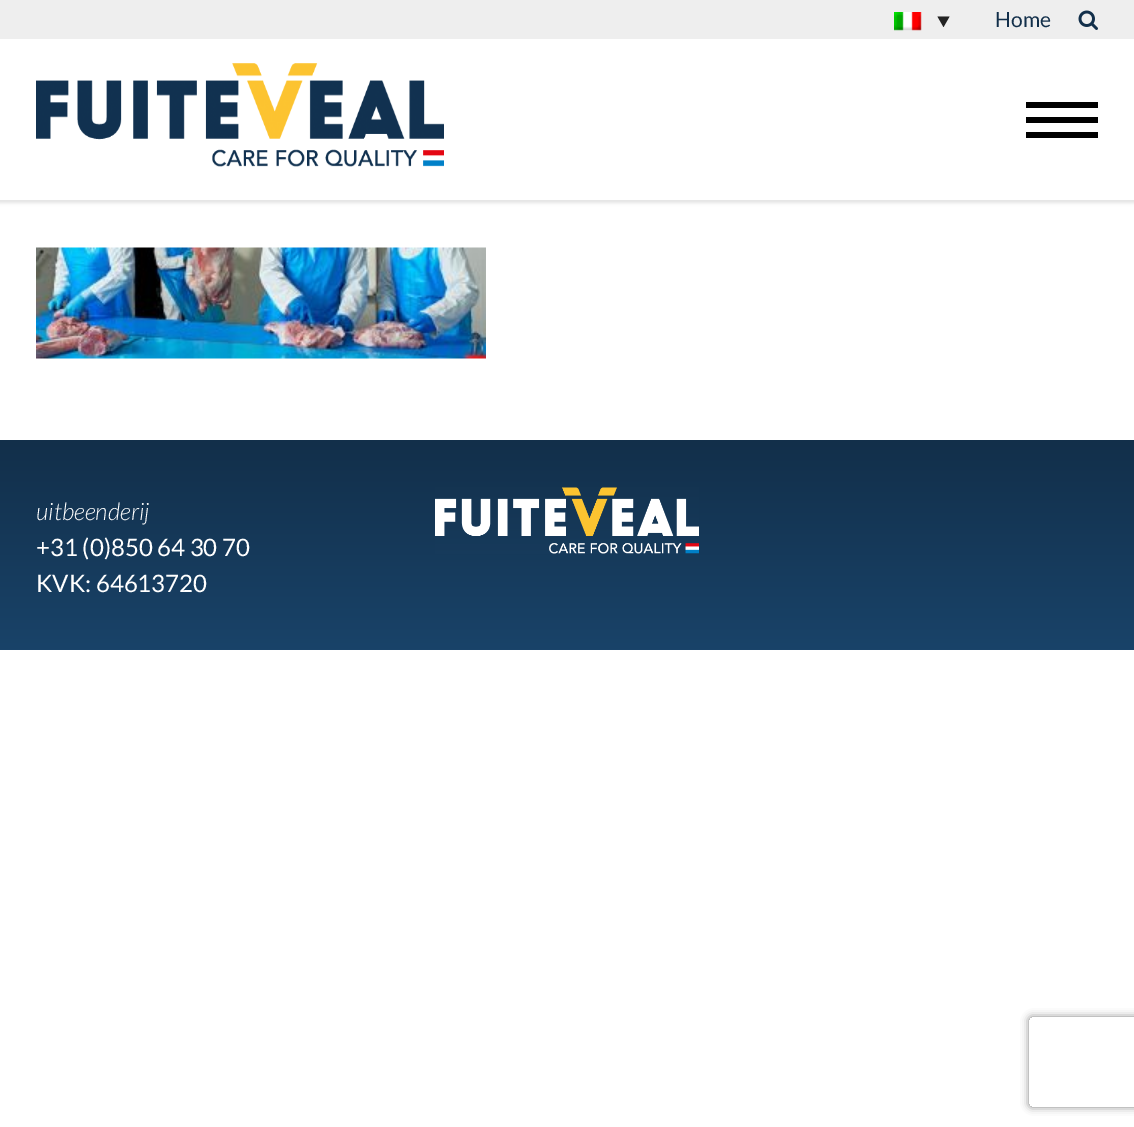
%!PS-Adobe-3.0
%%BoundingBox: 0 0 1134 1127
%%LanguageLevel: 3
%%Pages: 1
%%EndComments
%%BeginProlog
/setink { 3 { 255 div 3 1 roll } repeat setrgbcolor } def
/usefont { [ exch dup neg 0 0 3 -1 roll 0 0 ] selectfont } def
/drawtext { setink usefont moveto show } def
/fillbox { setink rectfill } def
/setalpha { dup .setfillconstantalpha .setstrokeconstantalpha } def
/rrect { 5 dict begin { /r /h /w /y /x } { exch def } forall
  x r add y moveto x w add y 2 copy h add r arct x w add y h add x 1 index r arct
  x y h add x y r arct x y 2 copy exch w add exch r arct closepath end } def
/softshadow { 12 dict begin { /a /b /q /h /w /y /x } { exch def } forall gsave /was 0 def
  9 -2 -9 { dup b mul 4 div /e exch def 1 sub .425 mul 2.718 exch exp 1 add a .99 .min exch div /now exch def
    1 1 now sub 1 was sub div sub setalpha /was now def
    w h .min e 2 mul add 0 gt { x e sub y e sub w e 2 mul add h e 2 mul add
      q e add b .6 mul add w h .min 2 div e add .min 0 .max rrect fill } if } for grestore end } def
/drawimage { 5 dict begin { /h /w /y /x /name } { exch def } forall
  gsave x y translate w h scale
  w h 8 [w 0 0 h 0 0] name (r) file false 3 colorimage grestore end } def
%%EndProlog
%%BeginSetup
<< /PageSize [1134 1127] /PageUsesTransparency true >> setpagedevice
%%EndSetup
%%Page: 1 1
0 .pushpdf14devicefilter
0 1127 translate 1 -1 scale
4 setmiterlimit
0 0 1134 1127 255 255 255 fillbox
0 0 0 setink
-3 -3 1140 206 0 1.5 0.1 softshadow
0 39 1134 161 255 255 255 fillbox
0 0 1134 39 238 238 238 fillbox
(assets/img1.rgb) 894 12 28 19 drawimage
34 34 34 setink
937.5 16.5 moveto 949.5 16.5 lineto 943.5 27 lineto closepath fill
(Home) 995 27 /Lato-Regular 21 18 47 74 drawtext
(assets/img2.rgb) 1078 10 20 20 drawimage
(assets/img3.rgb) 36 63 408 104 drawimage
1026 102 72 6 0 0 0 fillbox
1026 117 72 6 0 0 0 fillbox
1026 132 72 6 0 0 0 fillbox
(assets/img4.rgb) 36 247 450 112 drawimage
gsave 0 440 moveto 1134 440 lineto 1134 650 lineto 0 650 lineto closepath clip newpath
<< /ShadingType 2 /ColorSpace /DeviceRGB /Coords [567 439 567 650] /Extend [true true] /Function << /FunctionType 2 /Domain [0 1] /C0 [0.071 0.184 0.29] /C1 [0.098 0.263 0.412] /N 1 >> >> shfill grestore
(uitbeenderij) 36 520 /Lato-LightItalic 24 255 255 255 drawtext
(+31 \(0\)850 64 30 70) 36 556 /Lato-Regular 24 255 255 255 drawtext
(KVK: 64613720) 36 592 /Lato-Regular 24 255 255 255 drawtext
(assets/img5.rgb) 435 487 264 67 drawimage
gsave
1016 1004 moveto 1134 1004 lineto 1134 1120 lineto 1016 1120 lineto closepath 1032 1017 moveto 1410 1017 lineto 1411.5 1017 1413 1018.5 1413 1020 curveto 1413 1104 lineto 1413 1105.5 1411.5 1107 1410 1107 curveto 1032 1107 lineto 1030.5 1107 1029 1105.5 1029 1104 curveto 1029 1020 lineto 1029 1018.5 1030.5 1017 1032 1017 curveto closepath eoclip newpath
128 128 128 setink
1029 1017 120 90 3 4 1 softshadow
grestore
.poppdf14devicefilter showpage
%%EOF
